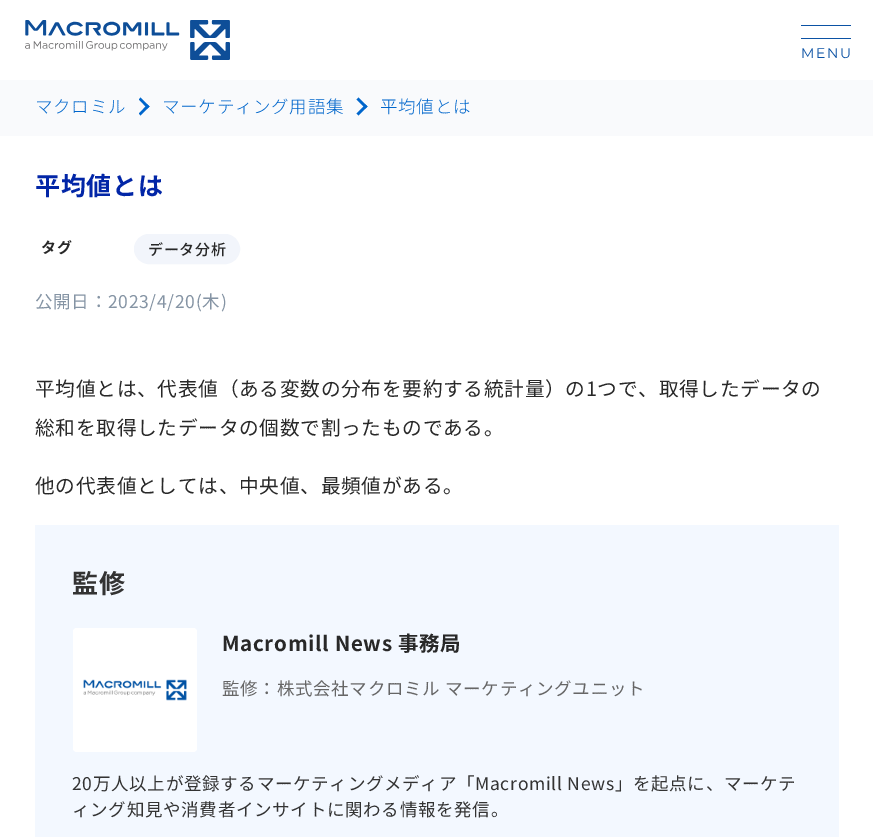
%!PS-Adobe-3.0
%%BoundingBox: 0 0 873 837
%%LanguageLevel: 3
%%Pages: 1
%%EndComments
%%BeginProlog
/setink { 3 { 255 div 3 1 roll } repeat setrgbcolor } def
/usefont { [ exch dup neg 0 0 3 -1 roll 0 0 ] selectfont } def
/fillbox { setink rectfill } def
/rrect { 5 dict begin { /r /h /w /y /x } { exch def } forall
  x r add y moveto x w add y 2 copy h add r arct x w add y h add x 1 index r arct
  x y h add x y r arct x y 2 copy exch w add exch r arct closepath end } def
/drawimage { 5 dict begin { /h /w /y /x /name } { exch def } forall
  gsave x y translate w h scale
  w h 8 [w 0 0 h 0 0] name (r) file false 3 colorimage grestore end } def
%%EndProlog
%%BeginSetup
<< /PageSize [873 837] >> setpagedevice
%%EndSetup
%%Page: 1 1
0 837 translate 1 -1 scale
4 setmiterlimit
0 0 873 837 255 255 255 fillbox
(assets/img1.rgb) 25 20 205 40 drawimage
801 25 50 1 11 82 164 fillbox
801 38 50 1 11 82 164 fillbox
/Montserrat-Regular 14 usefont
801 58 moveto 1.5 0 (MENU) ashow
0 80 873 56 249 250 252 fillbox
/NotoSansJP-Light 17.5 usefont
0 102 204 setink
35 113 moveto 0.7 0 (マクロミル) ashow
139 99.5 moveto 140.5 97.5 lineto 149.5 106.5 lineto 147.5 108.5 lineto closepath fill
139 113.5 moveto 147.5 104.5 lineto 149.5 106.5 lineto 140.5 115.5 lineto closepath fill
162 113 moveto 0.7 0 (マーケティング用語集) ashow
356.5 99.5 moveto 358.5 97.5 lineto 367.5 106.5 lineto 365.5 108.5 lineto closepath fill
356.5 113.5 moveto 365.5 104.5 lineto 367.5 106.5 lineto 358.5 115.5 lineto closepath fill
380 113 moveto 0.7 0 (平均値とは) ashow
/NotoSansJP-Bold 25 usefont
2 38 167 setink
35 195 moveto 0.7 0 (平均値とは) ashow
/NotoSansJP-Bold 15 usefont
40 40 40 setink
41 253 moveto 0.7 0 (タグ) ashow
242 245 251 setink
134.5 234.5 105 29 14.5 rrect gsave fill grestore
stroke
/NotoSansJP-Medium 15 usefont
40 40 40 setink
148 255 moveto 0.7 0 (データ分析) ashow
/NotoSansJP-Regular 17.5 usefont
133 148 164 setink
35 308 moveto 0.7 0 (公開日：2023/4/20\(木\)) ashow
/NotoSansJP-Regular 19.7 usefont
40 40 40 setink
35 396 moveto 0.7 0 (平均値とは、代表値（ある変数の分布を要約する統計量）の1つで、取得したデータの) ashow
35 435 moveto 0.7 0 (総和を取得したデータの個数で割ったものである。) ashow
35 493 moveto 0.7 0 (他の代表値としては、中央値、最頻値がある。) ashow
35 525 804 312 243 248 255 fillbox
/NotoSansJP-Bold 26 usefont
51 51 51 setink
72 593 moveto 0.7 0 (監修) ashow
(assets/img2.rgb) 73 628 124 124 drawimage
/NotoSansJP-Bold 20.5 usefont
40 40 40 setink
222 651 moveto 0.7 0 (Macromill News 事務局) ashow
/NotoSansJP-Regular 17.5 usefont
102 102 102 setink
222 695 moveto 0.7 0 (監修：株式会社マクロミル マーケティングユニット) ashow
51 51 51 setink
72 790 moveto 0.7 0 (20万人以上が登録するマーケティングメディア「Macromill News」を起点に、マーケテ) ashow
72 816 moveto 0.7 0 (ィング知見や消費者インサイトに関わる情報を発信。) ashow
showpage
%%EOF
